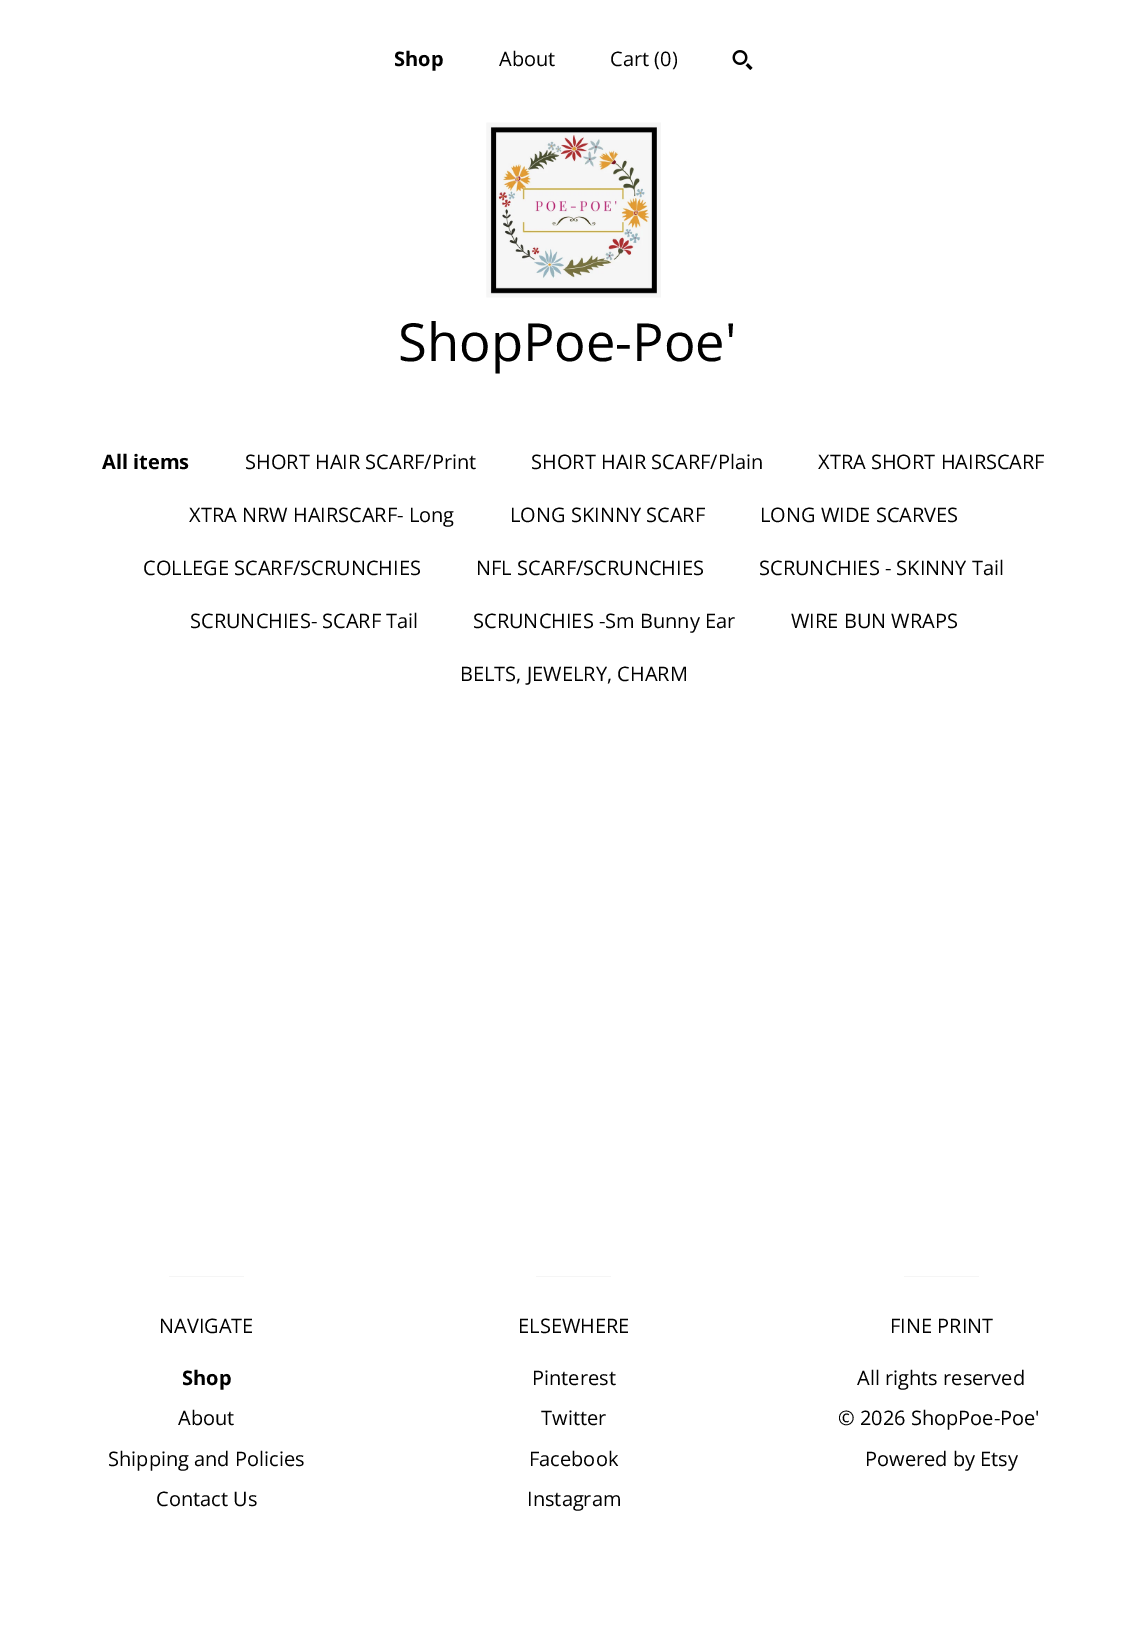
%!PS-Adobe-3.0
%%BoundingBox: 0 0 1147 1641
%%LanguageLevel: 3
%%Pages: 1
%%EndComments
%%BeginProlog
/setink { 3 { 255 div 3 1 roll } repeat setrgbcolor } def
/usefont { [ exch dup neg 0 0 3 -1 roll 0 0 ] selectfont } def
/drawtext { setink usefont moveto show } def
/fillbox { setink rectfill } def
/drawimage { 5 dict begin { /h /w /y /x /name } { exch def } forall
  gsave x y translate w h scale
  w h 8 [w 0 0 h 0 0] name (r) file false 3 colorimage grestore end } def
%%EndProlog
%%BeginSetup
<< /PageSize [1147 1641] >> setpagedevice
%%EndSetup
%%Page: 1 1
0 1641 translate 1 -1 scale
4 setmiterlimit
0 0 1147 1641 255 255 255 fillbox
(Shop) 394 66 /OpenSans-Bold 20 0 0 0 drawtext
(About) 499 66 /OpenSans-Regular 20 0 0 0 drawtext
(Cart \(0\)) 610 66 /OpenSans-Regular 20 0 0 0 drawtext
(assets/img1.rgb) 732 50 21 20 drawimage
(assets/img2.rgb) 486 122 175 176 drawimage
(ShopPoe-Poe') 398 361 /OpenSans-Regular 52.5 0 0 0 drawtext
(All items) 102 469 /OpenSans-Bold 20 0 0 0 drawtext
(SHORT HAIR SCARF/Print) 245 469 /OpenSans-Regular 20 0 0 0 drawtext
(SHORT HAIR SCARF/Plain) 531 469 /OpenSans-Regular 20 0 0 0 drawtext
(XTRA SHORT HAIRSCARF) 818 469 /OpenSans-Regular 20 0 0 0 drawtext
(XTRA NRW HAIRSCARF- Long) 189 522 /OpenSans-Regular 20 0 0 0 drawtext
(LONG SKINNY SCARF) 510 522 /OpenSans-Regular 20 0 0 0 drawtext
(LONG WIDE SCARVES) 760 522 /OpenSans-Regular 20 0 0 0 drawtext
(COLLEGE SCARF/SCRUNCHIES) 143 575 /OpenSans-Regular 20 0 0 0 drawtext
(NFL SCARF/SCRUNCHIES) 476 575 /OpenSans-Regular 20 0 0 0 drawtext
(SCRUNCHIES - SKINNY Tail) 759 575 /OpenSans-Regular 20 0 0 0 drawtext
(SCRUNCHIES- SCARF Tail) 190 628 /OpenSans-Regular 20 0 0 0 drawtext
(SCRUNCHIES -Sm Bunny Ear) 473 628 /OpenSans-Regular 20 0 0 0 drawtext
(WIRE BUN WRAPS) 791 628 /OpenSans-Regular 20 0 0 0 drawtext
(BELTS, JEWELRY, CHARM) 460 681 /OpenSans-Regular 20 0 0 0 drawtext
169 1276 75 1 245 245 245 fillbox
(NAVIGATE) 159 1333 /OpenSans-Regular 20 0 0 0 drawtext
(Shop) 182 1385 /OpenSans-Bold 20 0 0 0 drawtext
(About) 178 1425 /OpenSans-Regular 20 0 0 0 drawtext
(Shipping and Policies) 108 1466 /OpenSans-Regular 20 0 0 0 drawtext
(Contact Us) 156 1506 /OpenSans-Regular 20 0 0 0 drawtext
536 1276 75 1 245 245 245 fillbox
(ELSEWHERE) 518 1333 /OpenSans-Regular 20 0 0 0 drawtext
(Pinterest) 532 1385 /OpenSans-Regular 20 0 0 0 drawtext
(Twitter) 541 1425 /OpenSans-Regular 20 0 0 0 drawtext
(Facebook) 529 1466 /OpenSans-Regular 20 0 0 0 drawtext
(Instagram) 527 1506 /OpenSans-Regular 20 0 0 0 drawtext
904 1276 75 1 245 245 245 fillbox
(FINE PRINT) 890 1333 /OpenSans-Regular 20 0 0 0 drawtext
(All rights reserved) 857 1385 /OpenSans-Regular 20 0 0 0 drawtext
(© 2026 ShopPoe-Poe') 838 1425 /OpenSans-Regular 20 0 0 0 drawtext
(Powered by Etsy) 865 1466 /OpenSans-Regular 20 0 0 0 drawtext
showpage
%%EOF
